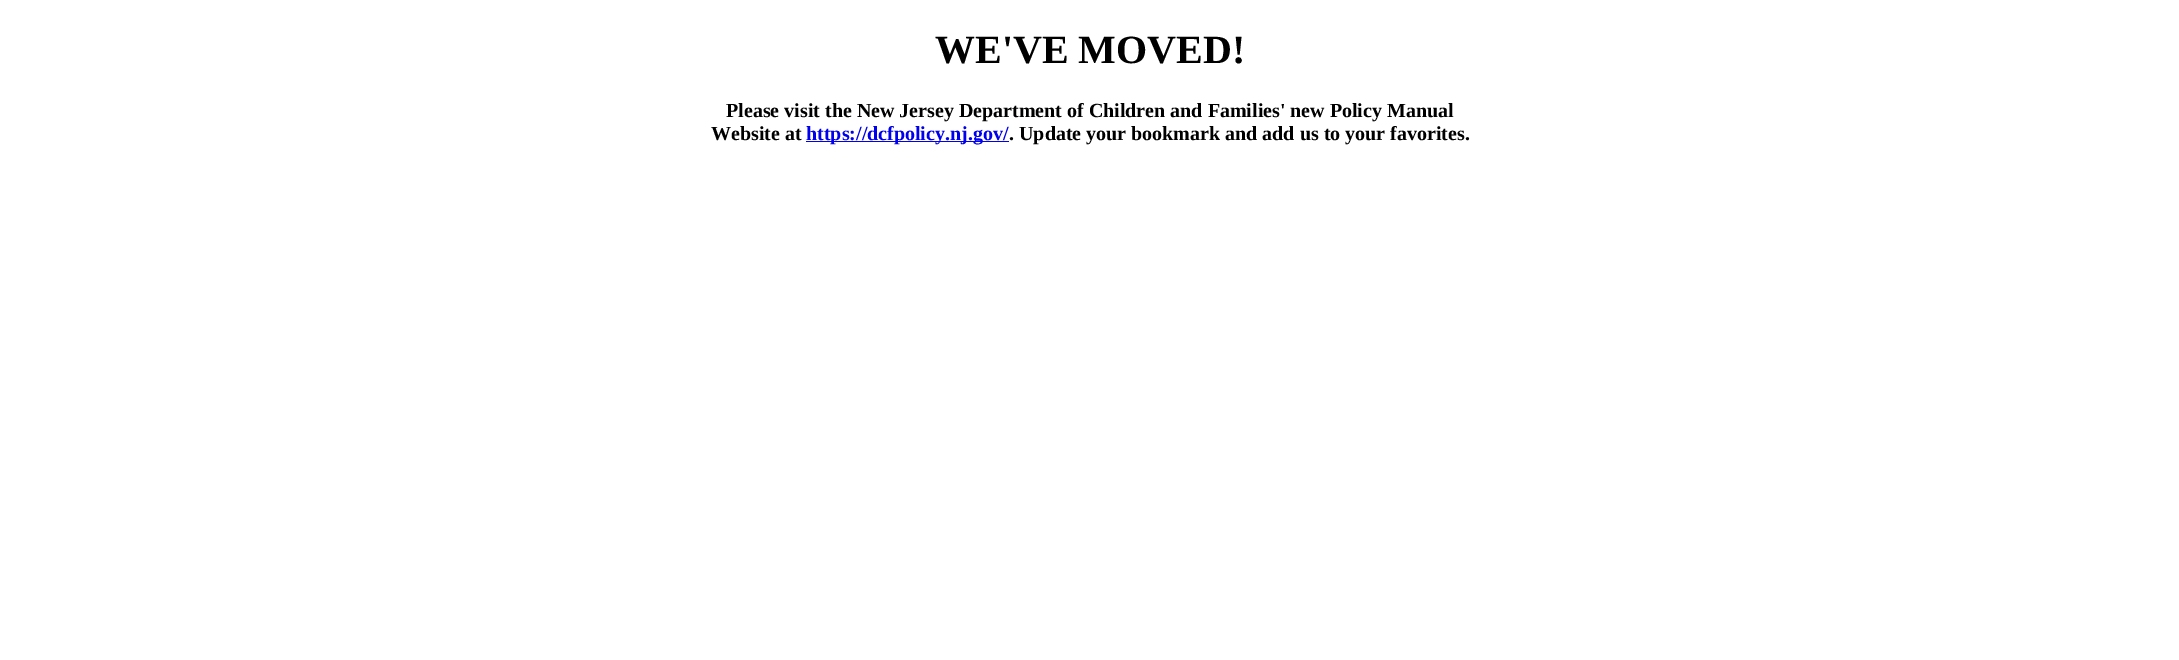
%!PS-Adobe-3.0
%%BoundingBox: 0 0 2179 660
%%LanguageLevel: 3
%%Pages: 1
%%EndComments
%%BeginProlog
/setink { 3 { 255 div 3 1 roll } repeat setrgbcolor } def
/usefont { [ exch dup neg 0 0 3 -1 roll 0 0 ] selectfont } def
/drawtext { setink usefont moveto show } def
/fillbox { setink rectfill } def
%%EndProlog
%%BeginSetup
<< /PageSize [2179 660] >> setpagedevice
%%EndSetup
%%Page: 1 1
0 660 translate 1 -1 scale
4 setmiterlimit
0 0 2179 660 255 255 255 fillbox
(WE'VE MOVED!) 935 63 /LiberationSerif-Bold 40 0 0 0 drawtext
(Please visit the New Jersey Department of Children and Families' new Policy Manual) 726 117 /LiberationSerif-Bold 20 0 0 0 drawtext
(Website at) 711 140 /LiberationSerif-Bold 20 0 0 0 drawtext
806 141 203 1 0 0 238 fillbox
(https://dcfpolicy.nj.gov/) 806 140 /LiberationSerif-Bold 20 0 0 238 drawtext
(. Update your bookmark and add us to your favorites.) 1009 140 /LiberationSerif-Bold 20 0 0 0 drawtext
showpage
%%EOF
